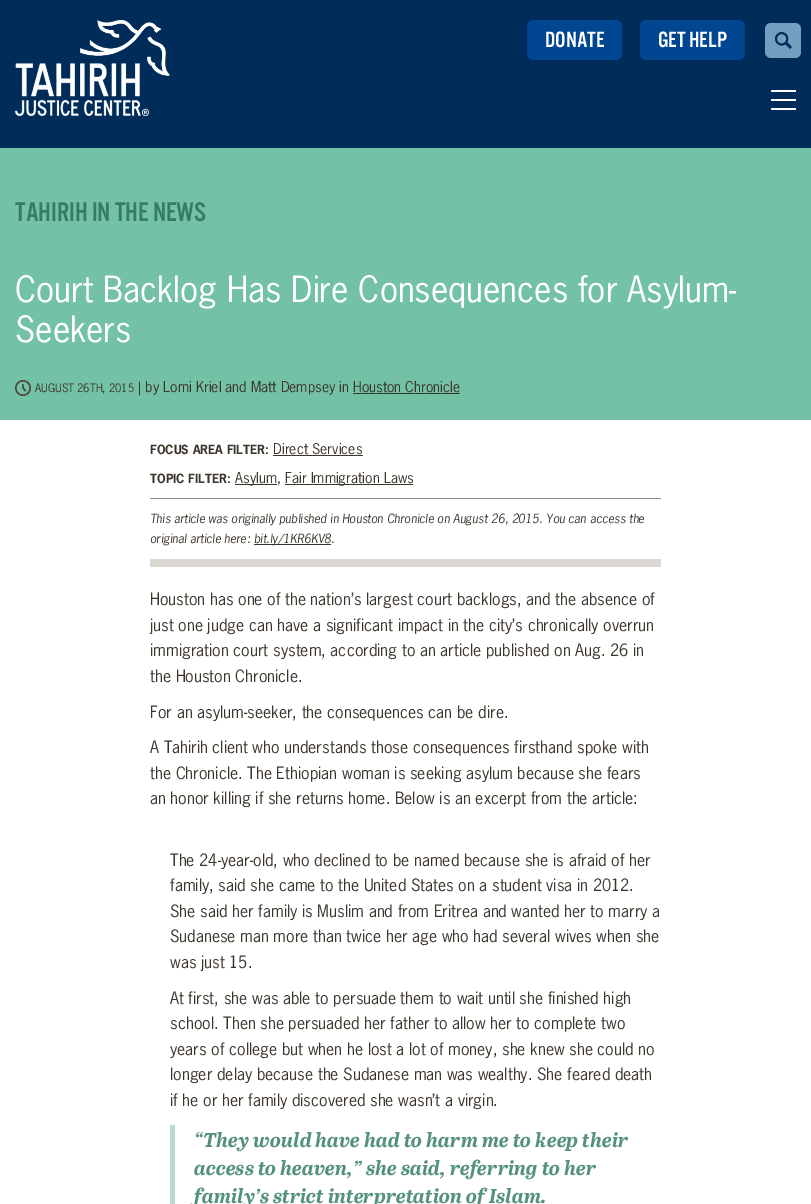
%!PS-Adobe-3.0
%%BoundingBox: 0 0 811 1204
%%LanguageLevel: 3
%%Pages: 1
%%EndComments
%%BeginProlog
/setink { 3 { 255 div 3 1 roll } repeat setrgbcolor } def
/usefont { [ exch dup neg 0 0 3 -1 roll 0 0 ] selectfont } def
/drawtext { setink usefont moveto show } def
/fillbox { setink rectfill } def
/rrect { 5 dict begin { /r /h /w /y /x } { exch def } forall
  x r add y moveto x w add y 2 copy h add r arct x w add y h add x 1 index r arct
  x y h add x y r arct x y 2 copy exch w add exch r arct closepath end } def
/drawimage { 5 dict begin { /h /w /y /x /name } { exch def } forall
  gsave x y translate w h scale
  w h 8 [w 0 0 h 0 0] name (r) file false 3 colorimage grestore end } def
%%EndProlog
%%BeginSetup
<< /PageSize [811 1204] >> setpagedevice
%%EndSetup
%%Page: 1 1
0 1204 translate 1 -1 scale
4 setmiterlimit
0 0 811 1204 255 255 255 fillbox
0 0 811 148 0 44 90 fillbox
(assets/img1.rgb) 15 20 155 97 drawimage
0 70 145 setink
527 20 95 40 6 rrect fill
(DONATE) 545 47 /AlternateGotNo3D-Regular 23 255 255 255 drawtext
0 70 145 setink
640 20 105 40 6 rrect fill
(GET HELP) 658 47 /AlternateGotNo3D-Regular 23 255 255 255 drawtext
114 160 193 setink
765 23 36 35 6 rrect fill
(assets/img2.rgb) 775 32 17 17 drawimage
255 255 255 setink
771 99 25 2 1 rrect fill
771 90 25 2 1 rrect fill
771 108 25 2 1 rrect fill
0 148 811 272 116 194 165 fillbox
(TAHIRIH IN THE NEWS) 15 221 /AlternateGotNo3D-Regular 28 53 124 99 drawtext
(Court Backlog Has Dire Consequences for Asylum-) 15 302 /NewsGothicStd-Regular 34 255 255 255 drawtext
(Seekers) 15 342 /NewsGothicStd-Regular 34 255 255 255 drawtext
(assets/img3.rgb) 15 380 16 16 drawimage
(AUGUST 26TH, 2015) 35 392 /NewsGothicStd-Regular 11 60 53 43 drawtext
(| by Lomi Kriel and Matt Dempsey in Houston Chronicle) 138 392 /NewsGothicStd-Regular 14 60 53 43 drawtext
353 393 107 1 60 53 43 fillbox
(FOCUS AREA FILTER:) 150 454 /NewsGothicStd-Bold 12 60 53 43 drawtext
(Direct Services) 273 454 /NewsGothicStd-Regular 14 60 53 43 drawtext
273 455 90 1 60 53 43 fillbox
(TOPIC FILTER:) 150 483 /NewsGothicStd-Bold 12 60 53 43 drawtext
235 484 42 1 60 53 43 fillbox
(Asylum,) 235 483 /NewsGothicStd-Regular 14 60 53 43 drawtext
285 484 128 1 60 53 43 fillbox
(Fair Immigration Laws) 285 483 /NewsGothicStd-Regular 14 60 53 43 drawtext
150 498 511 1 146 140 131 fillbox
(This article was originally published in Houston Chronicle on August 26, 2015. You can access the) 150 523 /NewsGothicStd-Italic 12 60 53 43 drawtext
(original article here:) 150 543 /NewsGothicStd-Italic 12 60 53 43 drawtext
254 544 77 1 60 53 43 fillbox
(bit.ly/1KR6KV8.) 254 543 /NewsGothicStd-Italic 12 60 53 43 drawtext
150 559 511 8 219 216 210 fillbox
(Houston has one of the nation’s largest court backlogs, and the absence of) 150 605 /NewsGothicStd-Regular 16 60 53 43 drawtext
(just one judge can have a significant impact in the city’s chronically overrun) 150 631 /NewsGothicStd-Regular 16 60 53 43 drawtext
(immigration court system, according to an article published on Aug. 26 in) 150 656 /NewsGothicStd-Regular 16 60 53 43 drawtext
(the Houston Chronicle.) 150 682 /NewsGothicStd-Regular 16 60 53 43 drawtext
(For an asylum-seeker, the consequences can be dire.) 150 718 /NewsGothicStd-Regular 16 60 53 43 drawtext
(A Tahirih client who understands those consequences firsthand spoke with) 150 753 /NewsGothicStd-Regular 16 60 53 43 drawtext
(the Chronicle. The Ethiopian woman is seeking asylum because she fears) 150 779 /NewsGothicStd-Regular 16 60 53 43 drawtext
(an honor killing if she returns home. Below is an excerpt from the article:) 150 804 /NewsGothicStd-Regular 16 60 53 43 drawtext
(The 24-year-old, who declined to be named because she is afraid of her) 170 866 /NewsGothicStd-Regular 16 60 53 43 drawtext
(family, said she came to the United States on a student visa in 2012.) 170 891 /NewsGothicStd-Regular 16 60 53 43 drawtext
(She said her family is Muslim and from Eritrea and wanted her to marry a) 170 917 /NewsGothicStd-Regular 16 60 53 43 drawtext
(Sudanese man more than twice her age who had several wives when she) 170 942 /NewsGothicStd-Regular 16 60 53 43 drawtext
(was just 15.) 170 968 /NewsGothicStd-Regular 16 60 53 43 drawtext
(At first, she was able to persuade them to wait until she finished high) 170 1004 /NewsGothicStd-Regular 16 60 53 43 drawtext
(school. Then she persuaded her father to allow her to complete two) 170 1029 /NewsGothicStd-Regular 16 60 53 43 drawtext
(years of college but when he lost a lot of money, she knew she could no) 170 1055 /NewsGothicStd-Regular 16 60 53 43 drawtext
(longer delay because the Sudanese man was wealthy. She feared death) 170 1080 /NewsGothicStd-Regular 16 60 53 43 drawtext
(if he or her family discovered she wasn’t a virgin.) 170 1106 /NewsGothicStd-Regular 16 60 53 43 drawtext
170 1125 5 79 185 219 204 fillbox
(“They would have had to harm me to keep their) 194 1147 /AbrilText-BoldItalic 20 84 145 123 drawtext
(access to heaven,” she said, referring to her) 194 1175 /AbrilText-BoldItalic 20 84 145 123 drawtext
(family’s strict interpretation of Islam.) 194 1203 /AbrilText-BoldItalic 20 84 145 123 drawtext
showpage
%%EOF
